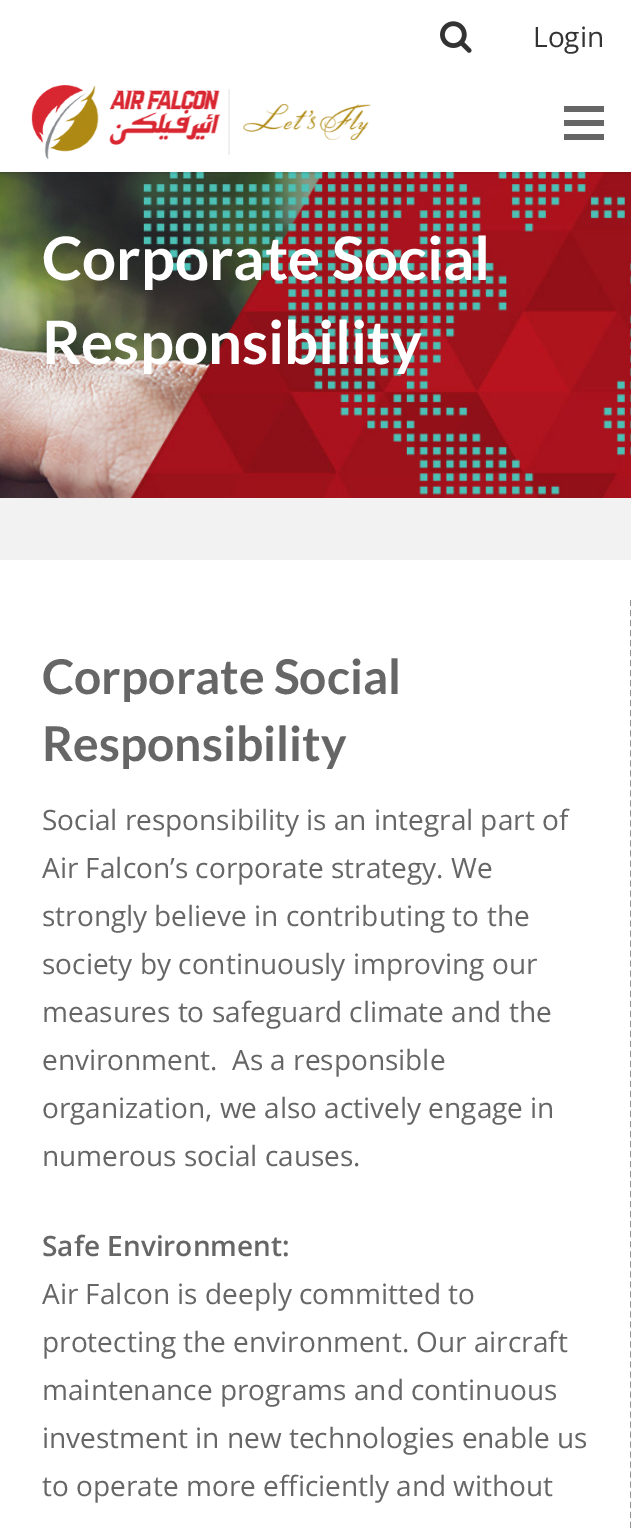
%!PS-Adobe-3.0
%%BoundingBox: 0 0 631 1528
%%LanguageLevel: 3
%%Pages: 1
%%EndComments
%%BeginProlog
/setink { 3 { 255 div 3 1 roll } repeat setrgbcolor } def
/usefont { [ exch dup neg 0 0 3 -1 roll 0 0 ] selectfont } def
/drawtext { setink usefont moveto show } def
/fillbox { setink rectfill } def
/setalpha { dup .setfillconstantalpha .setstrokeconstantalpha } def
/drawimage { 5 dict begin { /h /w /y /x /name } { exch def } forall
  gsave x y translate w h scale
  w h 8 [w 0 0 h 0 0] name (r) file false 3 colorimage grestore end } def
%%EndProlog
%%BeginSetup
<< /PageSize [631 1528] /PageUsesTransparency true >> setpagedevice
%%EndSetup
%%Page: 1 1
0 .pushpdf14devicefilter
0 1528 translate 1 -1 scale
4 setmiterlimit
0 0 631 1528 255 255 255 fillbox
(assets/img1.rgb) 440 21 32 32 drawimage
(Login) 533 47 /OpenSans-Regular 28 51 51 51 drawtext
(assets/img3.rgb) 0 172 631 326 drawimage
0.08 setalpha
0 172 631 2 0 0 0 fillbox
1 setalpha
(assets/img2.rgb) 31 85 340 74 drawimage
564 120 40 6 102 102 102 fillbox
564 106 40 6 102 102 102 fillbox
564 134 40 6 102 102 102 fillbox
(Corporate Social) 42 280 /Lato-Bold 60 255 255 255 drawtext
(Responsibility) 42 364 /Lato-Bold 60 255 255 255 drawtext
0 498 631 62 242 242 242 fillbox
147 147 147 setink
2 setlinewidth
[6 4.02] 0 setdash
631 600 moveto 631 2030 lineto stroke
(Corporate Social) 42 694 /Lato-Bold 48 102 102 102 drawtext
(Responsibility) 42 761 /Lato-Bold 48 102 102 102 drawtext
(Social responsibility is an integral part of) 42 830 /OpenSans-Regular 28 102 102 102 drawtext
(Air Falcon’s corporate strategy. We) 42 878 /OpenSans-Regular 28 102 102 102 drawtext
(strongly believe in contributing to the) 42 926 /OpenSans-Regular 28 102 102 102 drawtext
(society by continuously improving our) 42 974 /OpenSans-Regular 28 102 102 102 drawtext
(measures to safeguard climate and the) 42 1022 /OpenSans-Regular 28 102 102 102 drawtext
(environment.  As a responsible) 42 1070 /OpenSans-Regular 28 102 102 102 drawtext
(organization, we also actively engage in) 42 1118 /OpenSans-Regular 28 102 102 102 drawtext
(numerous social causes.) 42 1166 /OpenSans-Regular 28 102 102 102 drawtext
(Safe Environment:) 42 1256 /OpenSans-SemiBold 28 102 102 102 drawtext
(Air Falcon is deeply committed to) 42 1304 /OpenSans-Regular 28 102 102 102 drawtext
(protecting the environment. Our aircraft) 42 1352 /OpenSans-Regular 28 102 102 102 drawtext
(maintenance programs and continuous) 42 1400 /OpenSans-Regular 28 102 102 102 drawtext
(investment in new technologies enable us) 42 1448 /OpenSans-Regular 28 102 102 102 drawtext
(to operate more efficiently and without) 42 1496 /OpenSans-Regular 28 102 102 102 drawtext
.poppdf14devicefilter showpage
%%EOF
